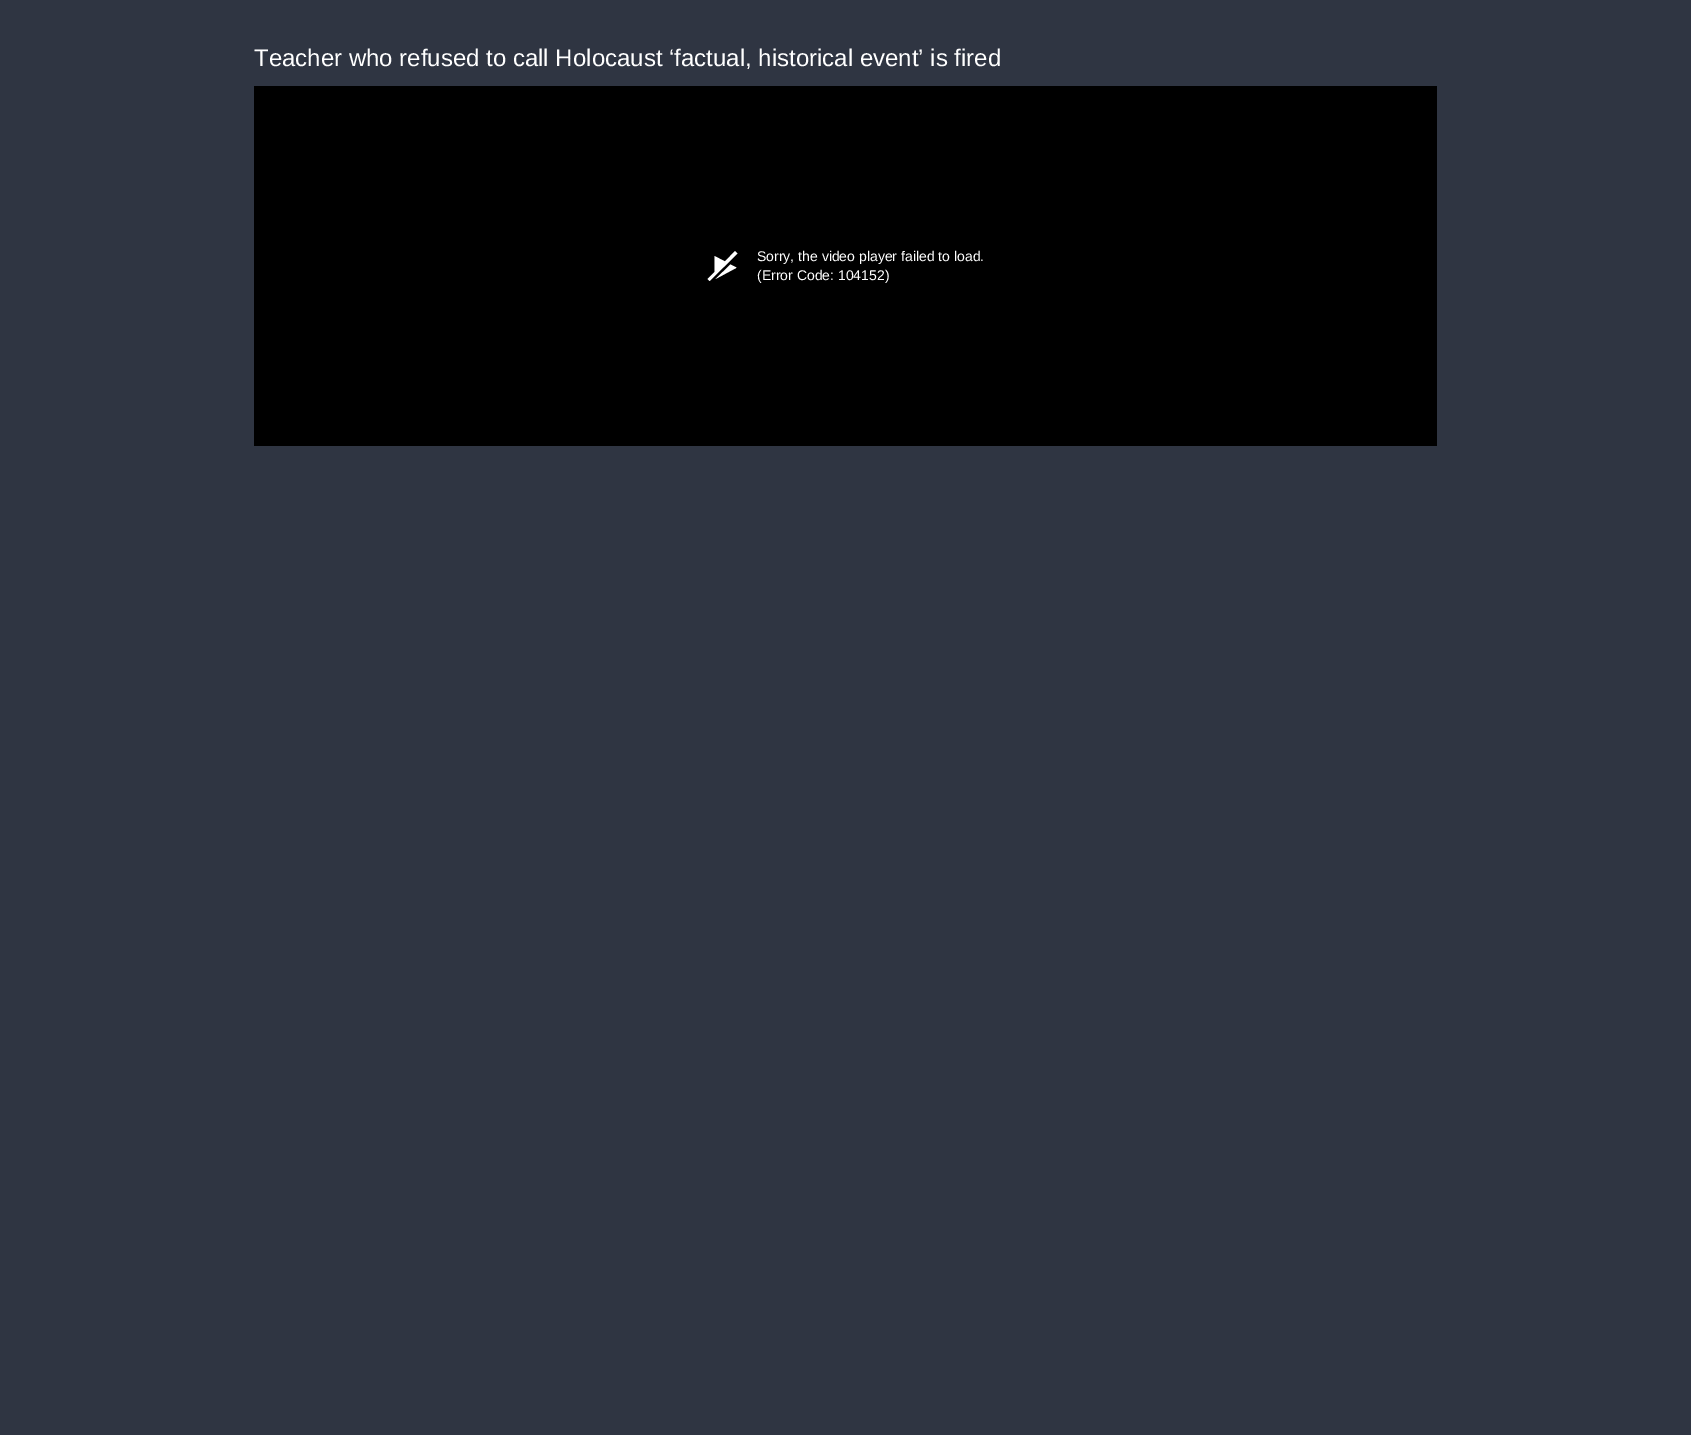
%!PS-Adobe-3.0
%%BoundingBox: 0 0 1691 1435
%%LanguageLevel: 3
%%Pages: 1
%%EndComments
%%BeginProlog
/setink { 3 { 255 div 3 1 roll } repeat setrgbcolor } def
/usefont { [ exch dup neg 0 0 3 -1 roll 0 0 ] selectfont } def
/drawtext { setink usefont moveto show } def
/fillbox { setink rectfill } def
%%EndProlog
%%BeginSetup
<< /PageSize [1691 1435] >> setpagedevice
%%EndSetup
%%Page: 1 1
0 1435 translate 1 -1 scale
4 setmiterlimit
0 0 1691 1435 47 53 66 fillbox
(Teacher who refused to call Holocaust ‘factual, historical event’ is fired) 254 66 /LiberationSans-Regular 24 255 255 255 drawtext
254 86 1183 360 0 0 0 fillbox
255 255 255 setink
736 268 moveto 715.5 279 lineto 730.5 264.5 lineto 736 267.5 737 267.5 736 268 curveto closepath 735 251 moveto 725 261.5 lineto 714.5 256 lineto 714.5 272 lineto 707.5 279 lineto 709.5 281 lineto 737.5 253.5 lineto closepath fill
(Sorry, the video player failed to load.) 757 261 /LiberationSans-Regular 14 255 255 255 drawtext
(\(Error Code: 104152\)) 757 280 /LiberationSans-Regular 14 255 255 255 drawtext
showpage
%%EOF
